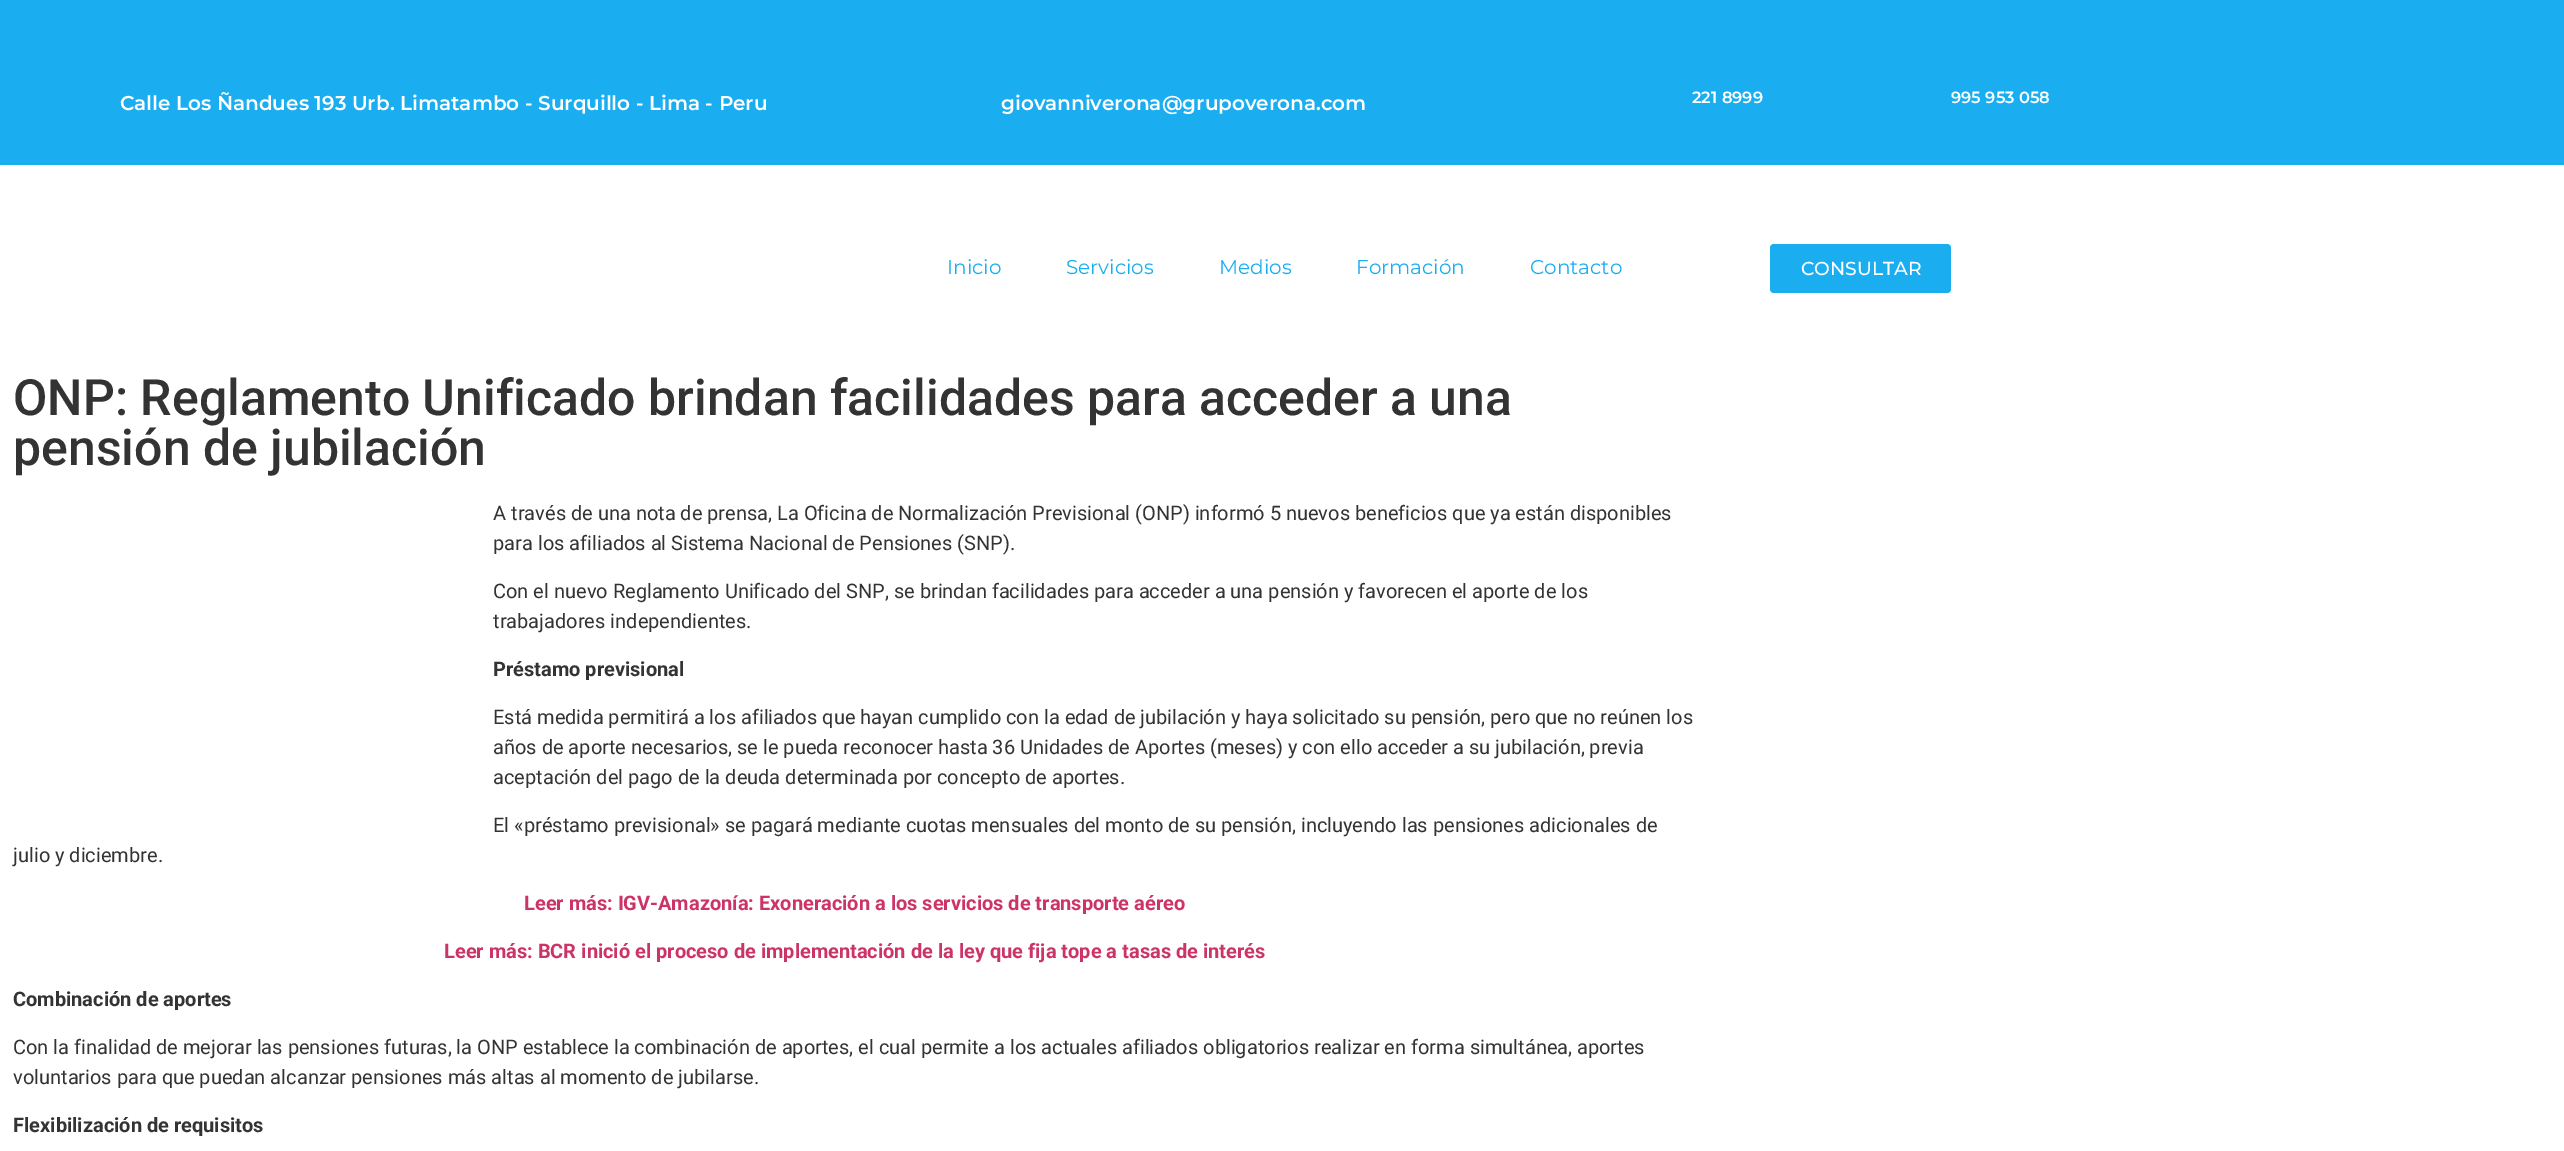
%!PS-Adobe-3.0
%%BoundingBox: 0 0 2564 1151
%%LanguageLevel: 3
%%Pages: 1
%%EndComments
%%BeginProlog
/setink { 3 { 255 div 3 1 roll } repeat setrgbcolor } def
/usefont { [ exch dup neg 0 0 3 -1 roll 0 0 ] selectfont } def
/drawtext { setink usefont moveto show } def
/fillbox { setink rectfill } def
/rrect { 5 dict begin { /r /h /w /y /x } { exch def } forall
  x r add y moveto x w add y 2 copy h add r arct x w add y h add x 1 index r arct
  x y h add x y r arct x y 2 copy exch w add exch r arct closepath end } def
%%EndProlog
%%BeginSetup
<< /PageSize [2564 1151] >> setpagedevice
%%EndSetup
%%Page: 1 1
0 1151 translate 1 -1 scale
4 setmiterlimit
0 0 2564 1151 255 255 255 fillbox
0 0 2564 165 26 174 241 fillbox
(Calle Los Ñandues 193 Urb. Limatambo - Surquillo - Lima - Peru) 120 110 /Montserrat-SemiBold 20 255 255 255 drawtext
(giovanniverona@grupoverona.com) 1001 110 /Montserrat-SemiBold 20 255 255 255 drawtext
(221 8999) 1692 103 /Montserrat-SemiBold 16.25 255 255 255 drawtext
(995 953 058) 1951 103 /Montserrat-SemiBold 16.25 255 255 255 drawtext
(Inicio) 947 274 /Montserrat-Regular 20 26 174 241 drawtext
(Servicios) 1066 274 /Montserrat-Regular 20 26 174 241 drawtext
(Medios) 1219 274 /Montserrat-Regular 20 26 174 241 drawtext
(Formación) 1356 274 /Montserrat-Regular 20 26 174 241 drawtext
(Contacto) 1530 274 /Montserrat-Regular 20 26 174 241 drawtext
1770 244 181 49 4 rrect fill
(CONSULTAR) 1801 275 /Montserrat-Medium 18.75 255 255 255 drawtext
(ONP: Reglamento Unificado brindan facilidades para acceder a una) 13 415 /Roboto-Medium 50 51 51 51 drawtext
(pensión de jubilación) 13 465 /Roboto-Medium 50 51 51 51 drawtext
(A través de una nota de prensa, La Oficina de Normalización Previsional \(ONP\) informó 5 nuevos beneficios que ya están disponibles) 493 520 /Roboto-Regular 20 51 51 51 drawtext
(para los afiliados al Sistema Nacional de Pensiones \(SNP\).) 493 550 /Roboto-Regular 20 51 51 51 drawtext
(Con el nuevo Reglamento Unificado del SNP, se brindan facilidades para acceder a una pensión y favorecen el aporte de los) 493 598 /Roboto-Regular 20 51 51 51 drawtext
(trabajadores independientes.) 493 628 /Roboto-Regular 20 51 51 51 drawtext
(Préstamo previsional) 493 676 /Roboto-Bold 20 51 51 51 drawtext
(Está medida permitirá a los afiliados que hayan cumplido con la edad de jubilación y haya solicitado su pensión, pero que no reúnen los) 493 724 /Roboto-Regular 20 51 51 51 drawtext
(años de aporte necesarios, se le pueda reconocer hasta 36 Unidades de Aportes \(meses\) y con ello acceder a su jubilación, previa) 493 754 /Roboto-Regular 20 51 51 51 drawtext
(aceptación del pago de la deuda determinada por concepto de aportes.) 493 784 /Roboto-Regular 20 51 51 51 drawtext
(El «préstamo previsional» se pagará mediante cuotas mensuales del monto de su pensión, incluyendo las pensiones adicionales de) 493 832 /Roboto-Regular 20 51 51 51 drawtext
(julio y diciembre.) 13 862 /Roboto-Regular 20 51 51 51 drawtext
(Leer más: IGV-Amazonía: Exoneración a los servicios de transporte aéreo) 524 910 /Roboto-Bold 20 204 51 102 drawtext
(Leer más: BCR inició el proceso de implementación de la ley que fija tope a tasas de interés) 444 958 /Roboto-Bold 20 204 51 102 drawtext
(Combinación de aportes) 13 1006 /Roboto-Bold 20 51 51 51 drawtext
(Con la finalidad de mejorar las pensiones futuras, la ONP establece la combinación de aportes, el cual permite a los actuales afiliados obligatorios realizar en forma simultánea, aportes) 13 1054 /Roboto-Regular 20 51 51 51 drawtext
(voluntarios para que puedan alcanzar pensiones más altas al momento de jubilarse.) 13 1084 /Roboto-Regular 20 51 51 51 drawtext
(Flexibilización de requisitos) 13 1132 /Roboto-Bold 20 51 51 51 drawtext
showpage
%%EOF
